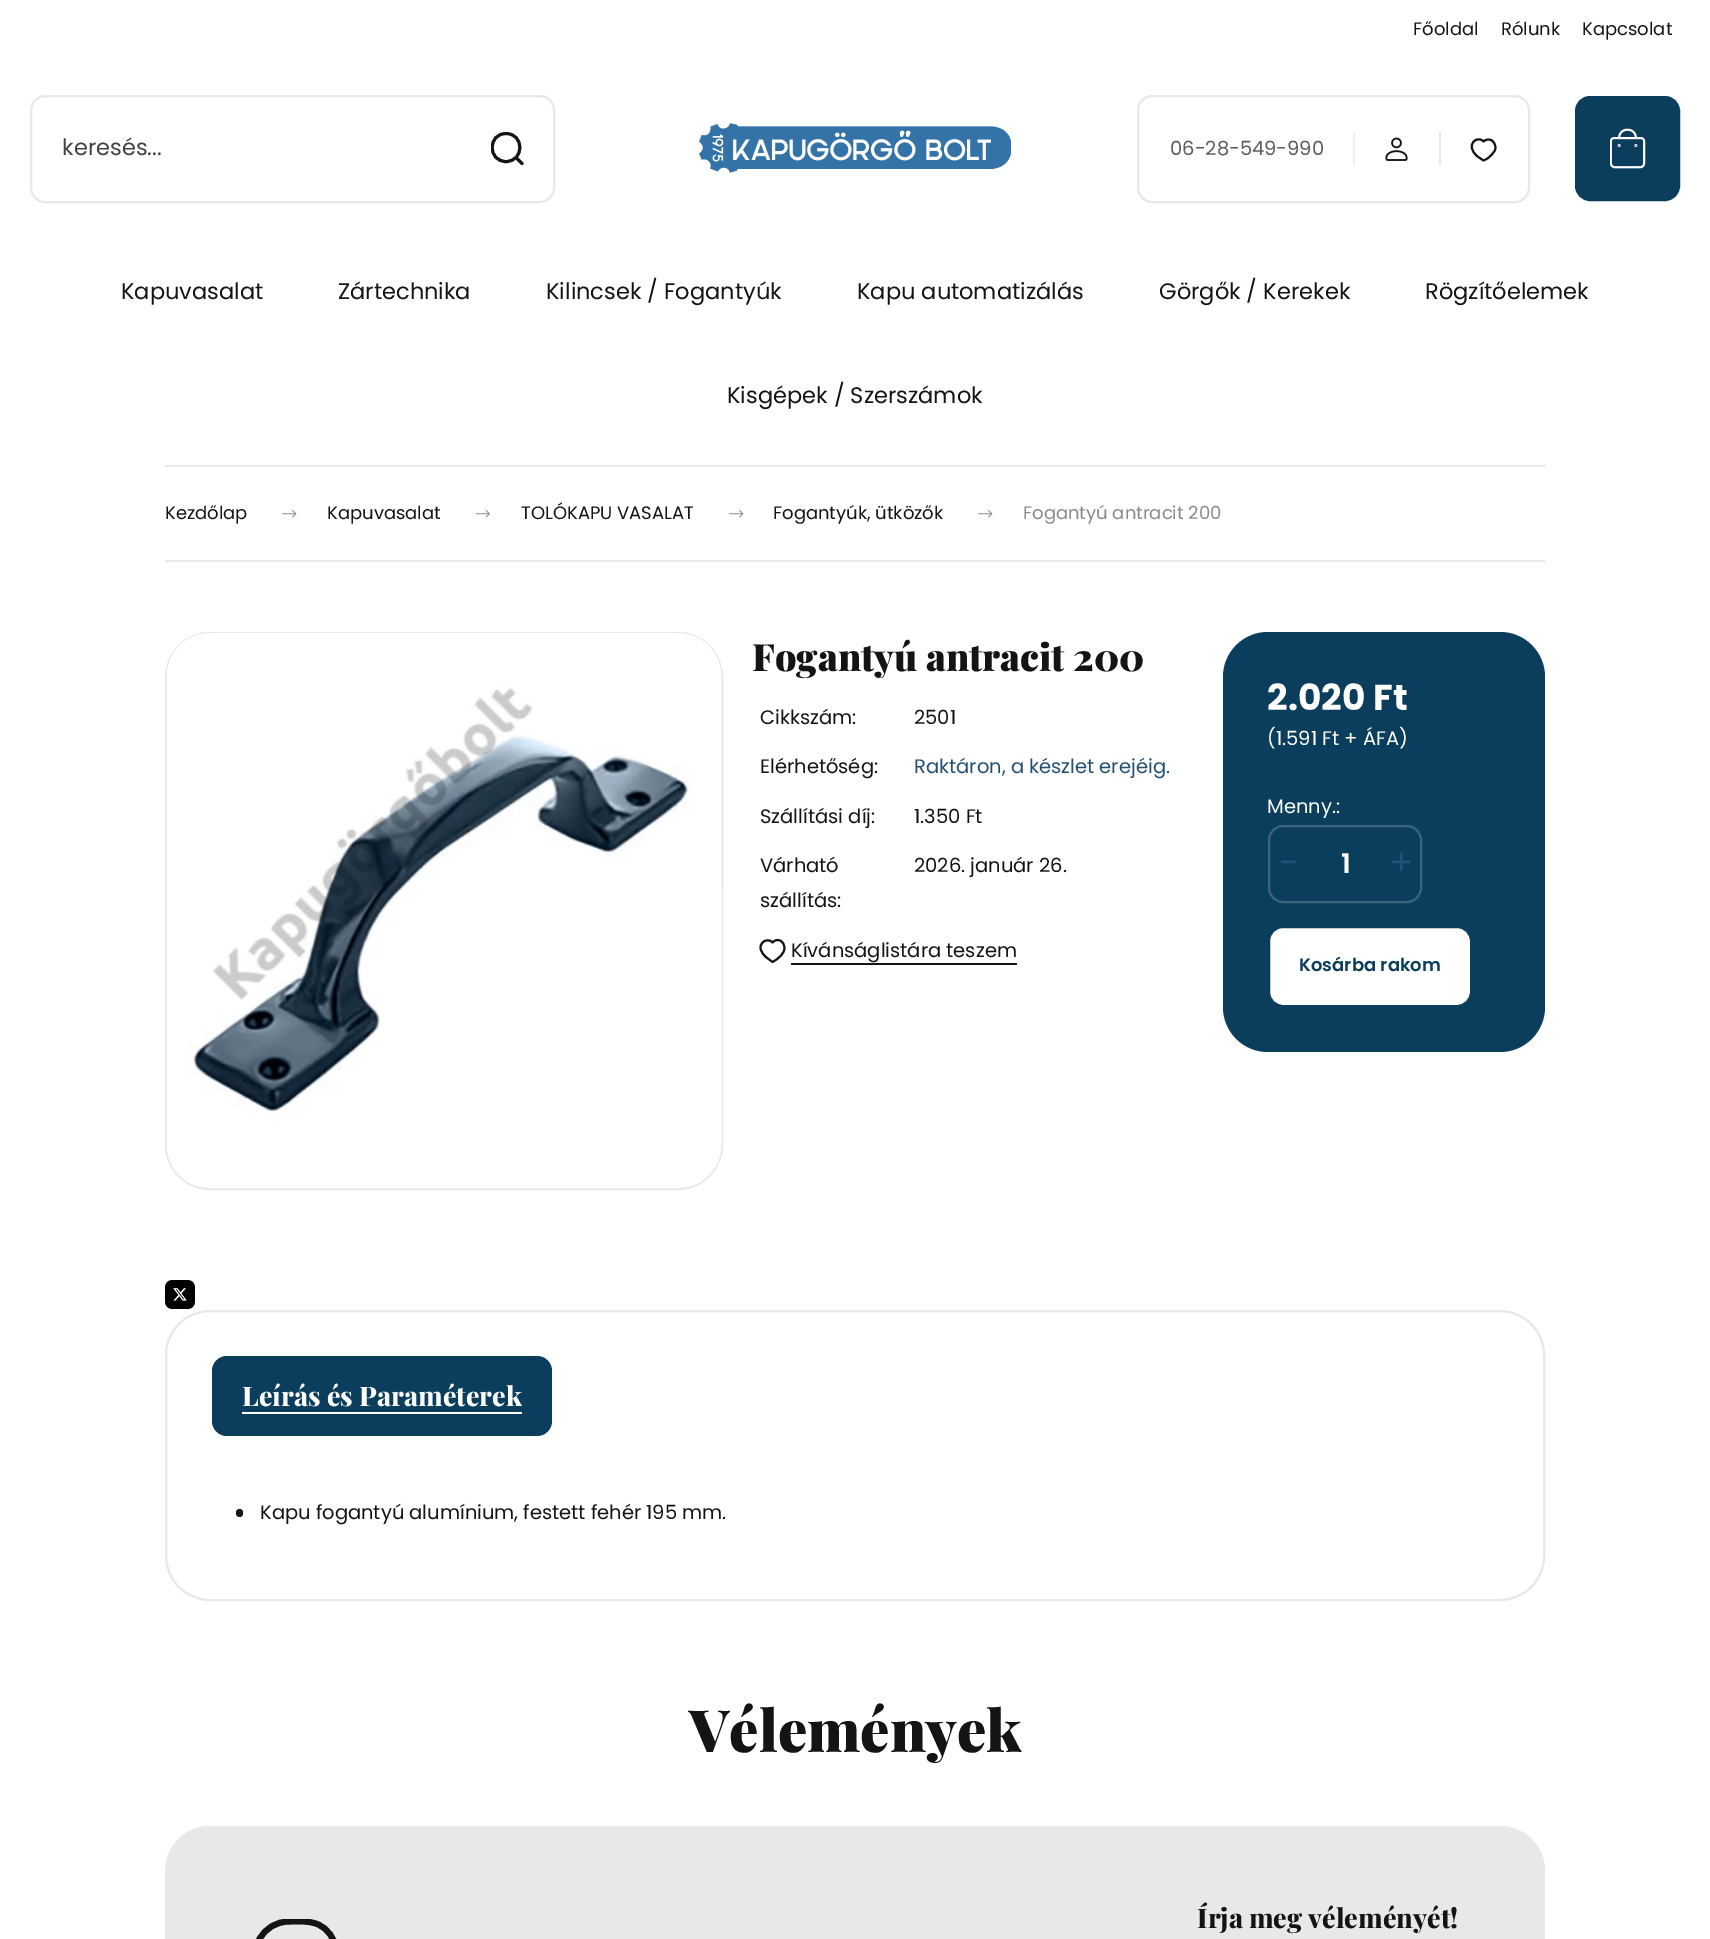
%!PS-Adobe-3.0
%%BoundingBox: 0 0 1710 1939
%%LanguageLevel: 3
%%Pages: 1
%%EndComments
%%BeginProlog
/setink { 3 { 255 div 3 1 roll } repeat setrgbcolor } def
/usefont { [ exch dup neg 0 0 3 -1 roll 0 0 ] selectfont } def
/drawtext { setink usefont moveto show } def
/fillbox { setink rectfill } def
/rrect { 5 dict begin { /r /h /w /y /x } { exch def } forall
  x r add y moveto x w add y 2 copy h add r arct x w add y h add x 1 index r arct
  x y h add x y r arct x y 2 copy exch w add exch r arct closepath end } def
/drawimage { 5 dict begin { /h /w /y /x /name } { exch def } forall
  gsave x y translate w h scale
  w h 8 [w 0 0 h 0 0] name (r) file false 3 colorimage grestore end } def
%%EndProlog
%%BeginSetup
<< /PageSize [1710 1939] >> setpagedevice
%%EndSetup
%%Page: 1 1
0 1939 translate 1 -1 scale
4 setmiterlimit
0 0 1710 1939 255 255 255 fillbox
(Főoldal) 1413 35 /Poppins-Regular 18 20 20 20 drawtext
(Rólunk) 1501 35 /Poppins-Regular 18 20 20 20 drawtext
(Kapcsolat) 1582 35 /Poppins-Regular 18 20 20 20 drawtext
232 232 232 setink
2 setlinewidth
31 96 523 106 14 rrect stroke
(keresés...) 62 155 /Poppins-Regular 22.5 67 67 67 drawtext
gsave
491 132 33 33 rectclip
20 20 20 setink
3 setlinewidth
1 setlinecap
1 setlinejoin
522 163.5 moveto 516 157.5 lineto 506 161.5 moveto 487.5 161.5 487.5 133.5 506 133.5 curveto 524.5 133.5 524.5 161.5 506 161.5 curveto closepath stroke
grestore
(assets/img1.rgb) 699 123 312 50 drawimage
232 232 232 setink
1138 96 391 106 14 rrect stroke
(06-28-549-990) 1170 155 /Poppins-Regular 19.5 91 91 91 drawtext
1353 132 2 33 239 239 239 fillbox
(assets/img2.rgb) 1385 137 23 24 drawimage
1439 132 2 33 232 232 232 fillbox
20 20 20 setink
1 setlinecap
1 setlinejoin
1488.5 139.5 moveto 1493.5 139.5 1496.5 145 1495 150 curveto 1493.5 153.5 1490.5 156 1487.5 158.5 curveto 1483.5 160.5 lineto 1477.5 156.5 lineto 1464 145 1477.5 134.5 1483.5 141.5 curveto 1484.5 140.5 1486 139.5 1488.5 139.5 curveto closepath stroke
10 62 92 setink
1576 97 103 103 14 rrect gsave fill grestore
0 setlinecap
0 setlinejoin
stroke
(assets/img3.rgb) 1610 128 36 41 drawimage
(Kapuvasalat) 121 299 /Poppins-Regular 22.5 20 20 20 drawtext
(Zártechnika) 338 299 /Poppins-Regular 22.5 20 20 20 drawtext
(Kilincsek / Fogantyúk) 546 299 /Poppins-Regular 22.5 20 20 20 drawtext
(Kapu automatizálás) 857 299 /Poppins-Regular 22.5 20 20 20 drawtext
(Görgők / Kerekek) 1159 299 /Poppins-Regular 22.5 20 20 20 drawtext
(Rögzítőelemek) 1425 299 /Poppins-Regular 22.5 20 20 20 drawtext
(Kisgépek / Szerszámok) 727 403 /Poppins-Regular 22.5 20 20 20 drawtext
165 465 1380 2 232 232 232 fillbox
165 560 1380 2 232 232 232 fillbox
(Kezdőlap) 165 519 /Poppins-Regular 18 20 20 20 drawtext
(assets/img4.rgb) 282 510 15 8 drawimage
(Kapuvasalat) 327 519 /Poppins-Regular 18 20 20 20 drawtext
(assets/img5.rgb) 476 510 14 8 drawimage
(TOLÓKAPU VASALAT) 521 519 /Poppins-Regular 18 20 20 20 drawtext
(assets/img4.rgb) 729 510 15 8 drawimage
(Fogantyúk, ütközők) 773 519 /Poppins-Regular 18 20 20 20 drawtext
(assets/img4.rgb) 978 510 15 8 drawimage
(Fogantyú antracit 200) 1023 519 /Poppins-Regular 18 138 138 138 drawtext
232 232 232 setink
166 633 556 556 44 rrect stroke
(assets/img6.rgb) 167 633 555 554 drawimage
(Fogantyú antracit 200) 752 671 /PlayfairDisplay-Black 37.5 20 20 20 drawtext
(Cikkszám:) 760 724 /Poppins-Regular 19.5 20 20 20 drawtext
(2501) 914 724 /Poppins-Regular 19.5 20 20 20 drawtext
(Elérhetőség:) 760 773 /Poppins-Regular 19.5 20 20 20 drawtext
(Raktáron, a készlet erejéig.) 914 773 /Poppins-Regular 19.5 36 81 115 drawtext
(Szállítási díj:) 760 823 /Poppins-Regular 19.5 20 20 20 drawtext
(1.350 Ft) 914 823 /Poppins-Regular 19.5 20 20 20 drawtext
(Várható) 760 872 /Poppins-Regular 19.5 20 20 20 drawtext
(szállítás:) 760 907 /Poppins-Regular 19.5 20 20 20 drawtext
(2026. január 26.) 914 872 /Poppins-Regular 19.5 20 20 20 drawtext
1 setlinecap
1 setlinejoin
777.5 940 moveto 783 940 785.5 946 784 950.5 curveto 783 954.5 779.5 957 776.5 959.5 curveto 772.5 962 lineto 766.5 957.5 lineto 752.5 946 766.5 935.5 772.5 942.5 curveto 773.5 941.5 775 940 777.5 940 curveto closepath stroke
(Kívánságlistára teszem) 791 957 /Poppins-Regular 19.5 20 20 20 drawtext
791 963 226 2 20 20 20 fillbox
10 62 92 setink
1223 632 322 420 45 rrect fill
(2.020 Ft) 1267 710 /Poppins-Bold 36 255 255 255 drawtext
(\(1.591 Ft + ÁFA\)) 1267 745 /Poppins-Regular 19.5 255 255 255 drawtext
(Menny.:) 1267 813 /Poppins-Regular 19.5 255 255 255 drawtext
59 101 125 setink
0 setlinecap
0 setlinejoin
1269 826 152 76 14 rrect stroke
(-) 1279 875 /Poppins-Regular 36 36 81 115 drawtext
(1) 1341 873 /Poppins-SemiBold 27 255 255 255 drawtext
(+) 1389 875 /Poppins-Regular 36 36 81 115 drawtext
255 255 255 setink
1269 927 202 79 14 rrect gsave fill grestore
10 62 92 setink
stroke
(Kosárba rakom) 1299 971 /Poppins-SemiBold 18 10 62 92 drawtext
(assets/img7.rgb) 165 1280 30 29 drawimage
232 232 232 setink
166 1311 1378 289 44 rrect stroke
10 62 92 setink
212 1356 340 80 15 rrect fill
(Leírás és Paraméterek) 242 1406 /PlayfairDisplay-ExtraBold 27 255 255 255 drawtext
242 1412 280 2 255 255 255 fillbox
20 20 20 setink
236 1509 7 8 3.5 rrect fill
(Kapu fogantyú alumínium, festett fehér 195 mm.) 260 1519 /Poppins-Regular 19.5 20 20 20 drawtext
(Vélemények) 689 1752 /PlayfairDisplay-Black 58.25 20 20 20 drawtext
232 232 232 setink
165 1826 1380 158 45 rrect fill
gsave
252 1919 87 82 rectclip
20 20 20 setink
6 setlinewidth
1 setlinecap
1 setlinejoin
282 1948.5 moveto 309 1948.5 lineto 282 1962 moveto 293 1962 lineto 289 1921.5 moveto 298 1921.5 308 1920.5 317 1924 curveto 339 1933 342.5 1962.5 324.5 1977.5 curveto 320 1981.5 314 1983.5 308 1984.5 curveto 300 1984.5 lineto 298.5 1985.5 303 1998 297 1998 curveto 294 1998 286.5 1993 284 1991.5 curveto 274.5 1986.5 265.5 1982 259.5 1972.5 curveto 246.5 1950 263 1921.5 289 1921.5 curveto closepath stroke
grestore
(Írja meg véleményét!) 1197 1928 /PlayfairDisplay-ExtraBold 27 20 20 20 drawtext
showpage
%%EOF
